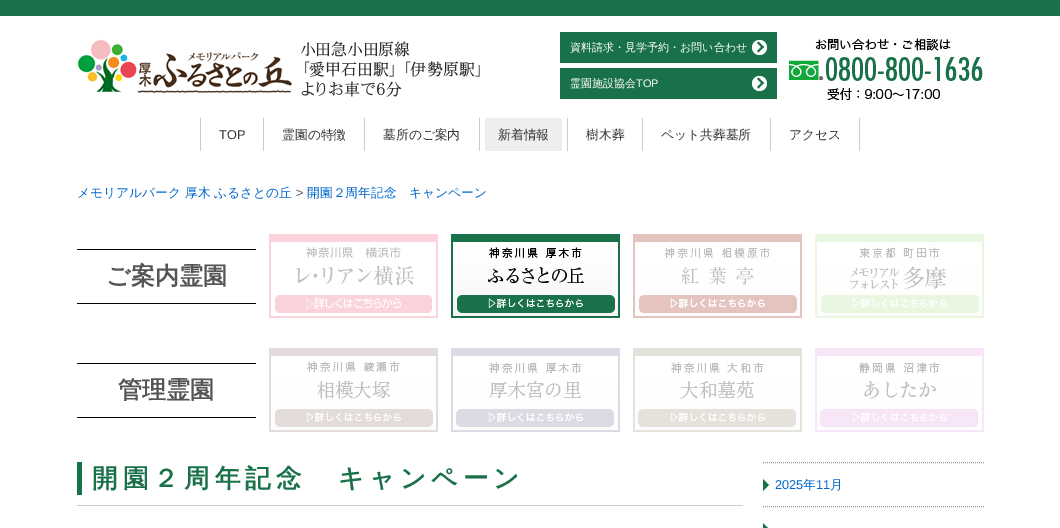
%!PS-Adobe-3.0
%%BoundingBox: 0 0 1060 528
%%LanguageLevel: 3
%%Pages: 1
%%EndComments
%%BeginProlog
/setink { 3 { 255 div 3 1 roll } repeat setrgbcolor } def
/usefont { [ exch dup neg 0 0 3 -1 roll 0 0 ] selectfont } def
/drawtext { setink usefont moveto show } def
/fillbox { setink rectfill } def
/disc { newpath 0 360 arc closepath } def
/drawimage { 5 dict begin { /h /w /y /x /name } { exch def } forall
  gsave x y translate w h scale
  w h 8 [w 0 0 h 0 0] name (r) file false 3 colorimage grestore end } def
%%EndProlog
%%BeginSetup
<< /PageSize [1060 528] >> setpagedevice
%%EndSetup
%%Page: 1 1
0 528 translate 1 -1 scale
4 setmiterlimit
0 0 1060 528 255 255 255 fillbox
0 0 1060 16 24 113 72 fillbox
(assets/img1.rgb) 77 38 906 62 drawimage
560 32 217 31 24 113 72 fillbox
(資料請求・見学予約・お問い合わせ) 570 51 /WenQuanYiZenHei-Medium 11 255 255 255 drawtext
759.5 47.5 7.5 disc fill
24 113 72 setink
757 43 moveto 758.5 41.5 lineto 764 47 lineto 762.5 48.5 lineto closepath fill
757 51 moveto 762.5 45.5 lineto 764 47 lineto 758.5 52.5 lineto closepath fill
560 68 217 31 24 113 72 fillbox
(霊園施設協会) 570 87 /WenQuanYiZenHei-Medium 11 255 255 255 drawtext
759.5 83.5 7.5 disc fill
(TOP) 636 87 /LiberationSans-Regular 11 255 255 255 drawtext
24 113 72 setink
757 79 moveto 758.5 77.5 lineto 764 83 lineto 762.5 84.5 lineto closepath fill
757 87 moveto 762.5 81.5 lineto 764 83 lineto 758.5 88.5 lineto closepath fill
263 118 1 33 204 204 204 fillbox
200 118 1 33 204 204 204 fillbox
(TOP) 219 139 /LiberationSans-Regular 12.75 51 51 51 drawtext
364 118 1 33 204 204 204 fillbox
(霊園の特徴) 282 139 /WenQuanYiZenHei-Medium 12.75 51 51 51 drawtext
479 118 1 33 204 204 204 fillbox
(墓所のご案内) 383 139 /WenQuanYiZenHei-Medium 12.75 51 51 51 drawtext
567 118 1 33 204 204 204 fillbox
485 118 77 33 238 238 238 fillbox
(新着情報) 498 139 /WenQuanYiZenHei-Medium 12.75 51 51 51 drawtext
642 118 1 33 204 204 204 fillbox
(樹木葬) 586 139 /WenQuanYiZenHei-Medium 12.75 51 51 51 drawtext
770 118 1 33 204 204 204 fillbox
(ペット共葬墓所) 661 139 /WenQuanYiZenHei-Medium 12.75 51 51 51 drawtext
859 118 1 33 204 204 204 fillbox
(アクセス) 789 139 /WenQuanYiZenHei-Medium 12.75 51 51 51 drawtext
(メモリアルパーク 厚木 ふるさとの丘) 77 197 /WenQuanYiZenHei-Medium 12.75 0 102 204 drawtext
(>) 296 197 /LiberationSans-Regular 12.75 85 85 85 drawtext
(開園２周年記念　キャンペーン) 307 197 /WenQuanYiZenHei-Medium 12.75 0 102 204 drawtext
77 249 179 1 0 0 0 fillbox
77 303 179 1 0 0 0 fillbox
(ご案内霊園) 106 284 /WenQuanYiZenHei-Bold 24 85 85 85 drawtext
(assets/img2.rgb) 269 234 169 84 drawimage
(assets/img3.rgb) 451 234 169 84 drawimage
(assets/img4.rgb) 633 234 169 84 drawimage
(assets/img5.rgb) 815 234 169 84 drawimage
77 363 179 1 0 0 0 fillbox
77 417 179 1 0 0 0 fillbox
(管理霊園) 118 398 /WenQuanYiZenHei-Bold 24 85 85 85 drawtext
(assets/img6.rgb) 269 348 169 84 drawimage
(assets/img7.rgb) 451 348 169 84 drawimage
(assets/img8.rgb) 633 348 169 84 drawimage
(assets/img9.rgb) 815 348 169 84 drawimage
77 462 5 33 24 113 72 fillbox
/WenQuanYiZenHei-Bold 25.6 usefont
92 487 moveto 5.1 0 (開園２周年記念　キャンペーン) ashow
77 505 666 1 204 204 204 fillbox
153 153 153 setink
[1 1] 0 setdash
763 462.5 moveto 984 462.5 lineto stroke
24 113 72 setink
763 491 moveto 763 479 lineto 769 485 lineto closepath fill
(2025) 775 489 /LiberationSans-Regular 12.75 0 102 204 drawtext
(年) 803 489 /WenQuanYiZenHei-Medium 12.75 0 102 204 drawtext
(11) 816 489 /LiberationSans-Regular 12.75 0 102 204 drawtext
(月) 830 489 /WenQuanYiZenHei-Medium 12.75 0 102 204 drawtext
153 153 153 setink
763 506.5 moveto 984 506.5 lineto stroke
24 113 72 setink
763 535 moveto 763 523 lineto 769 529 lineto closepath fill
showpage
%%EOF
